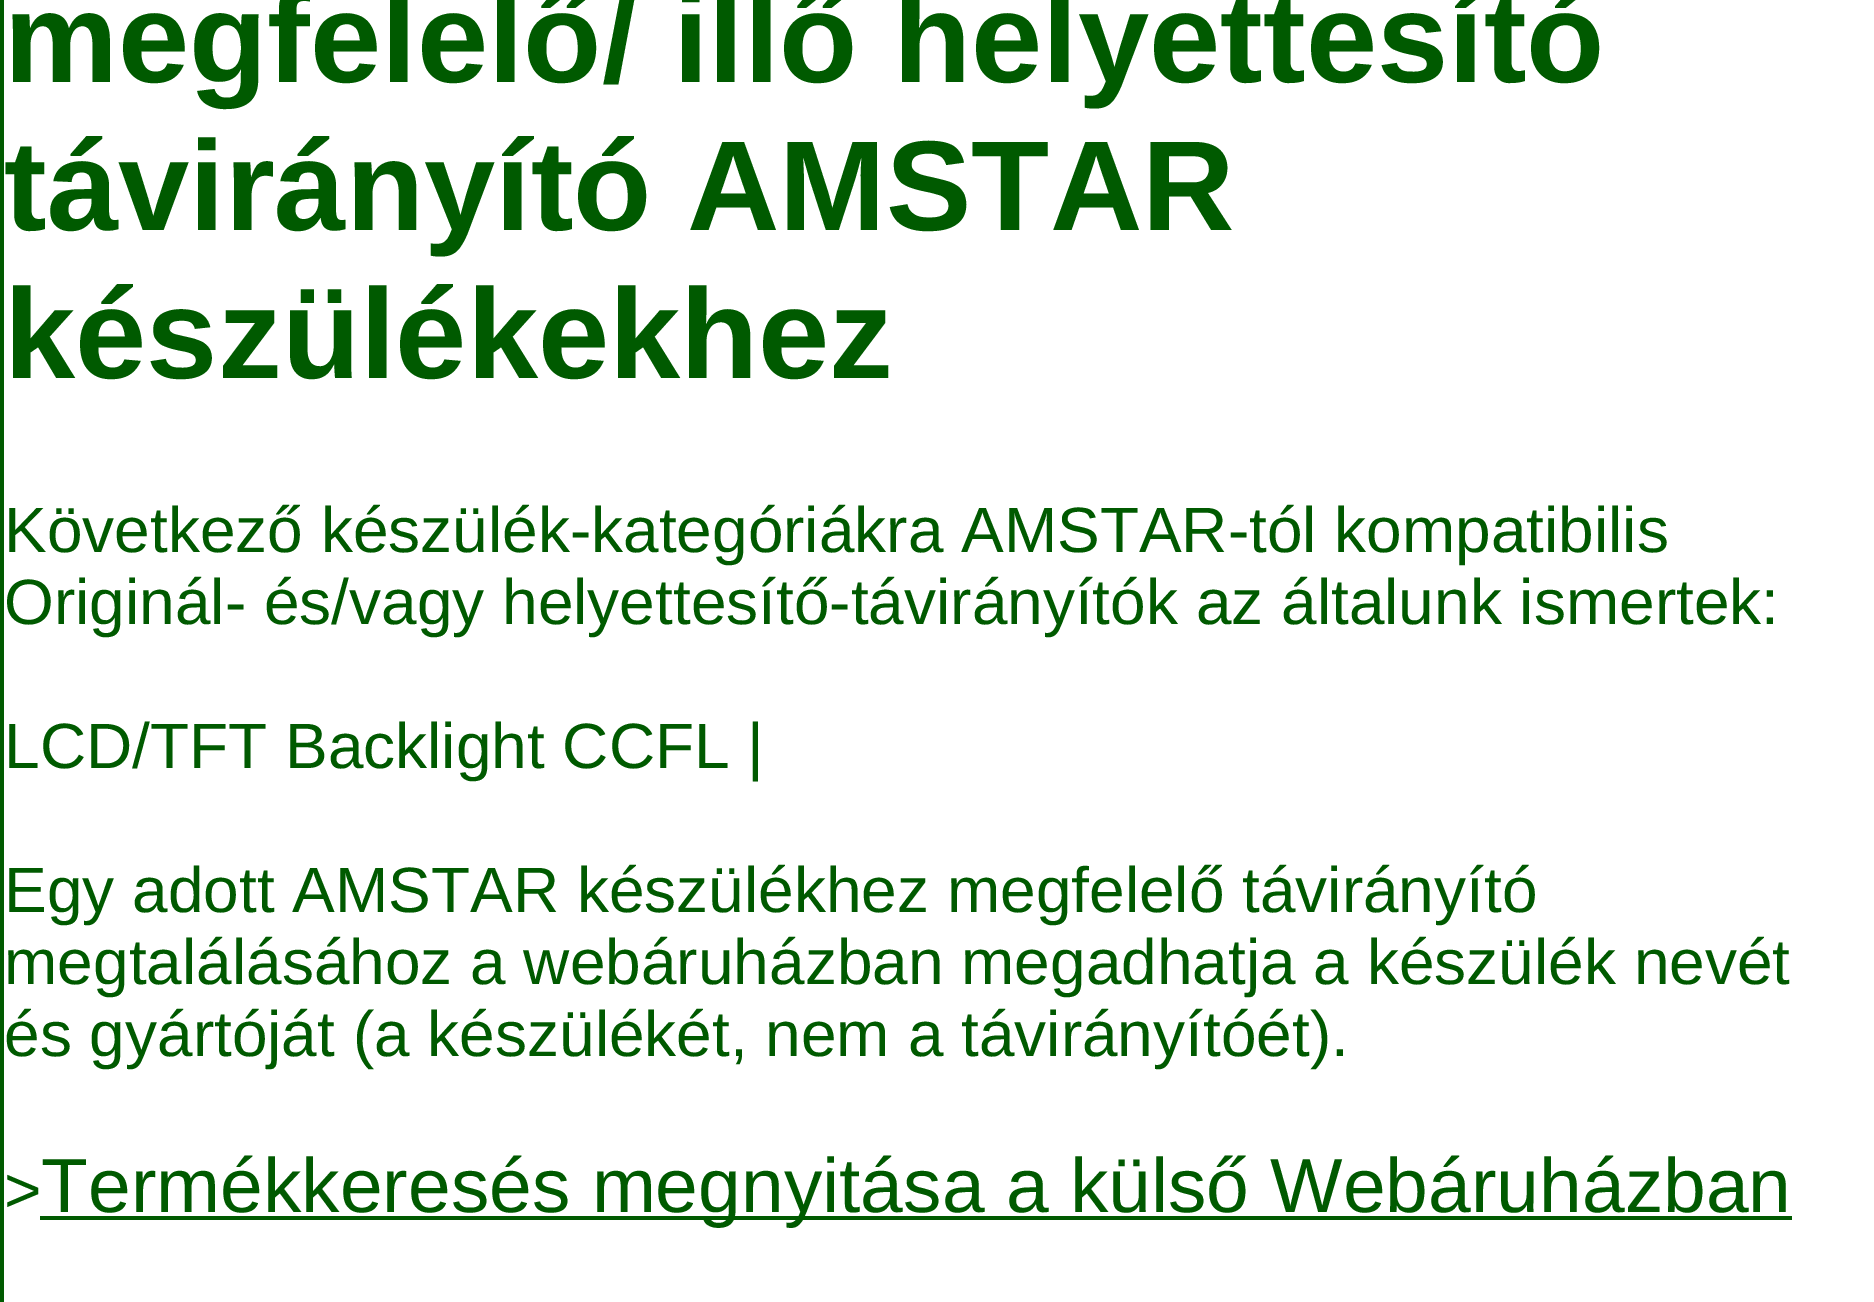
%!PS-Adobe-3.0
%%BoundingBox: 0 0 1874 1302
%%LanguageLevel: 3
%%Pages: 1
%%EndComments
%%BeginProlog
/setink { 3 { 255 div 3 1 roll } repeat setrgbcolor } def
/usefont { [ exch dup neg 0 0 3 -1 roll 0 0 ] selectfont } def
/drawtext { setink usefont moveto show } def
/fillbox { setink rectfill } def
%%EndProlog
%%BeginSetup
<< /PageSize [1874 1302] >> setpagedevice
%%EndSetup
%%Page: 1 1
0 1302 translate 1 -1 scale
4 setmiterlimit
0 0 1874 1302 255 255 255 fillbox
0 0 4 1302 0 90 0 fillbox
(megfelelő/ illő helyettesító) 4 82 /LiberationSans-Bold 128 0 90 0 drawtext
(távirányító AMSTAR) 4 230 /LiberationSans-Bold 128 0 90 0 drawtext
(készülékekhez) 4 378 /LiberationSans-Bold 128 0 90 0 drawtext
(Következő készülék-kategóriákra AMSTAR-tól kompatibilis) 4 552 /LiberationSans-Regular 64 0 90 0 drawtext
(Originál- és/vagy helyettesítő-távirányítók az általunk ismertek:) 4 624 /LiberationSans-Regular 64 0 90 0 drawtext
(LCD/TFT Backlight CCFL |) 4 768 /LiberationSans-Regular 64 0 90 0 drawtext
(Egy adott AMSTAR készülékhez megfelelő távirányító) 4 912 /LiberationSans-Regular 64 0 90 0 drawtext
(megtalálásához a webáruházban megadhatja a készülék nevét) 4 984 /LiberationSans-Regular 64 0 90 0 drawtext
(és gyártóját \(a készülékét, nem a távirányítóét\).) 4 1056 /LiberationSans-Regular 64 0 90 0 drawtext
(>) 4 1212 /LiberationSans-Regular 64 0 90 0 drawtext
40 1216 1752 4 0 90 0 fillbox
(Termékkeresés megnyitása a külső Webáruházban) 41 1212 /LiberationSans-Regular 76.8 0 90 0 drawtext
showpage
%%EOF
